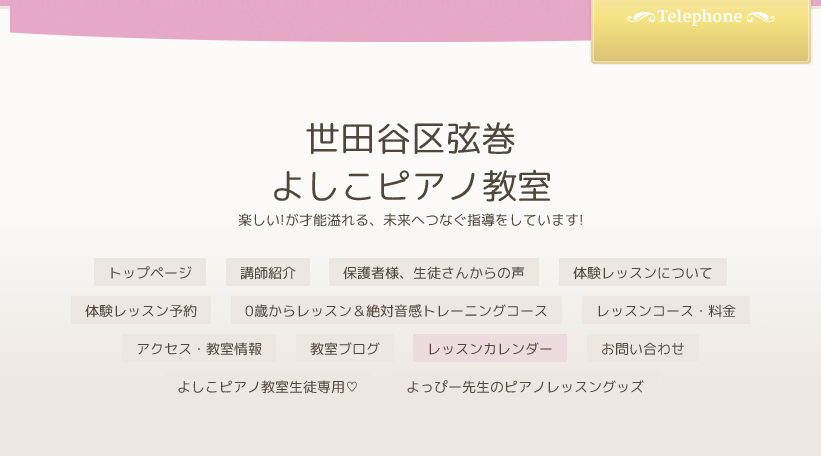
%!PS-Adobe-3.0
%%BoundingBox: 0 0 821 456
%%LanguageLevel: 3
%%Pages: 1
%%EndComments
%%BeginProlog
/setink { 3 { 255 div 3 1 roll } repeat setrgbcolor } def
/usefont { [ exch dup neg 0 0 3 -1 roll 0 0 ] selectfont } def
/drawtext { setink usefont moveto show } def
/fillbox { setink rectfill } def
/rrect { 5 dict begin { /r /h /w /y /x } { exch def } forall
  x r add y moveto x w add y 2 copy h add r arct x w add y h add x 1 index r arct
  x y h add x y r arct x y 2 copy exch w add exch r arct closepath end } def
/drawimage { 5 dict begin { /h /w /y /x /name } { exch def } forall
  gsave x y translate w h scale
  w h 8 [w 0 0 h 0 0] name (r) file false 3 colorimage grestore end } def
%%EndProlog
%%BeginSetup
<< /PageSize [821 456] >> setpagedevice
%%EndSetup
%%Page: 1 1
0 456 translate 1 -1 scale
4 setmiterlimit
0 0 821 456 255 255 255 fillbox
(assets/img1.rgb) 0 0 821 456 drawimage
(assets/img2.rgb) 10 6 581 36 drawimage
(assets/img3.rgb) 589 0 224 65 drawimage
(世田谷区弦巻) 305 151 /RoundedMplus1c-Regular 35.25 79 70 60 drawtext
(よしこピアノ教室) 270 199 /RoundedMplus1c-Regular 35.25 79 70 60 drawtext
(楽しい!が才能溢れる、未来へつなぐ指導をしています!) 238 225 /RoundedMplus1c-Regular 14 79 70 60 drawtext
237 231 225 setink
94 258 112 28 1 rrect fill
(トップページ) 108 278 /RoundedMplus1c-Regular 14 79 70 60 drawtext
237 231 225 setink
226 258 84 28 1 rrect fill
(講師紹介) 240 278 /RoundedMplus1c-Regular 14 79 70 60 drawtext
237 231 225 setink
329 258 210 28 1 rrect fill
(保護者様、生徒さんからの声) 343 278 /RoundedMplus1c-Regular 14 79 70 60 drawtext
237 231 225 setink
559 258 168 28 1 rrect fill
(体験レッスンについて) 573 278 /RoundedMplus1c-Regular 14 79 70 60 drawtext
237 231 225 setink
71 296 140 28 1 rrect fill
(体験レッスン予約) 85 316 /RoundedMplus1c-Regular 14 79 70 60 drawtext
237 231 225 setink
231 296 331 28 1 rrect fill
(0歳からレッスン＆絶対音感トレーニングコース) 245 316 /RoundedMplus1c-Regular 14 79 70 60 drawtext
237 231 225 setink
582 296 168 28 1 rrect fill
(レッスンコース・料金) 596 316 /RoundedMplus1c-Regular 14 79 70 60 drawtext
237 231 225 setink
122 334 154 28 1 rrect fill
(アクセス・教室情報) 136 354 /RoundedMplus1c-Regular 14 79 70 60 drawtext
237 231 225 setink
296 334 98 28 1 rrect fill
(教室ブログ) 310 354 /RoundedMplus1c-Regular 14 79 70 60 drawtext
238 219 222 setink
413 334 154 28 1 rrect fill
(レッスンカレンダー) 427 354 /RoundedMplus1c-Regular 14 79 70 60 drawtext
237 231 225 setink
587 334 112 28 1 rrect fill
(お問い合わせ) 601 354 /RoundedMplus1c-Regular 14 79 70 60 drawtext
237 231 225 setink
163 372 210 28 1 rrect fill
(よしこピアノ教室生徒専用♡) 177 392 /RoundedMplus1c-Regular 14 79 70 60 drawtext
237 231 225 setink
392 372 266 28 1 rrect fill
(よっぴー先生のピアノレッスングッズ) 406 392 /RoundedMplus1c-Regular 14 79 70 60 drawtext
showpage
%%EOF
